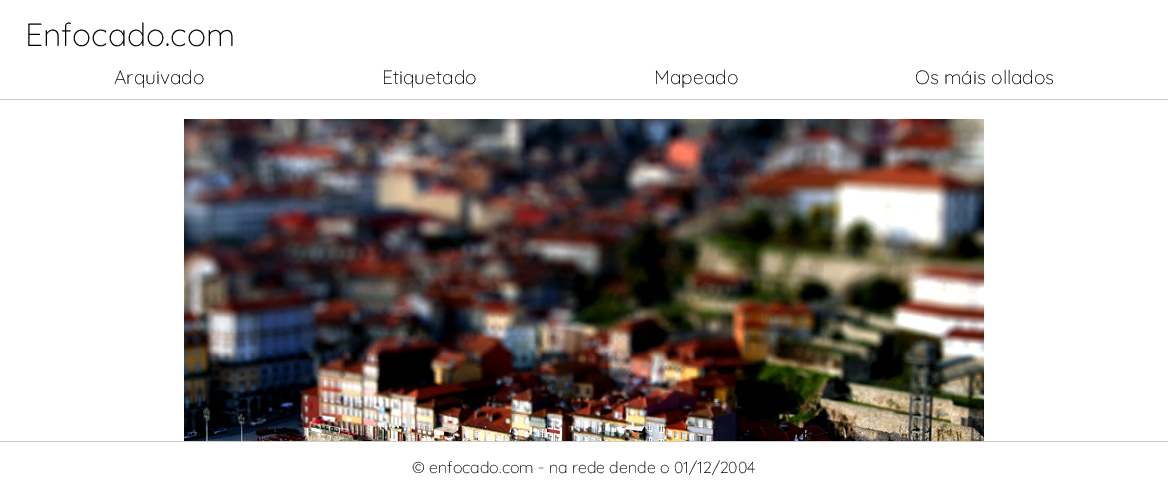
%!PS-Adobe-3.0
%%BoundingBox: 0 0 1168 492
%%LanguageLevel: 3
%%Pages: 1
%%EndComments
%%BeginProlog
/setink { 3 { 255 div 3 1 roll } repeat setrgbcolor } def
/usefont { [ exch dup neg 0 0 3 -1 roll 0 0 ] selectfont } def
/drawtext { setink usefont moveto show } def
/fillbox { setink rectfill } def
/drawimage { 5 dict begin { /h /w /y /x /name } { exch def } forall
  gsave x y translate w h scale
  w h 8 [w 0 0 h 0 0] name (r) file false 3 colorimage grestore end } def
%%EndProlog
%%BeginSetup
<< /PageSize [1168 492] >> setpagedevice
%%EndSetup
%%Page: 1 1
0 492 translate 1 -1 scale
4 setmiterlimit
0 0 1168 492 255 255 255 fillbox
0 99 1168 1 204 204 204 fillbox
(Enfocado.com) 25 46 /Quicksand-Light 32 0 0 0 drawtext
(Arquivado) 114 84 /Quicksand-Light 19.25 0 0 0 drawtext
(Etiquetado) 382 84 /Quicksand-Light 19.25 0 0 0 drawtext
(Mapeado) 654 84 /Quicksand-Light 19.25 0 0 0 drawtext
(Os máis ollados) 915 84 /Quicksand-Light 19.25 0 0 0 drawtext
(assets/img1.rgb) 184 119 800 322 drawimage
0 441 1168 1 204 204 204 fillbox
(© enfocado.com - na rede dende o 01/12/2004) 412 473 /Quicksand-Light 16 0 0 0 drawtext
showpage
%%EOF
